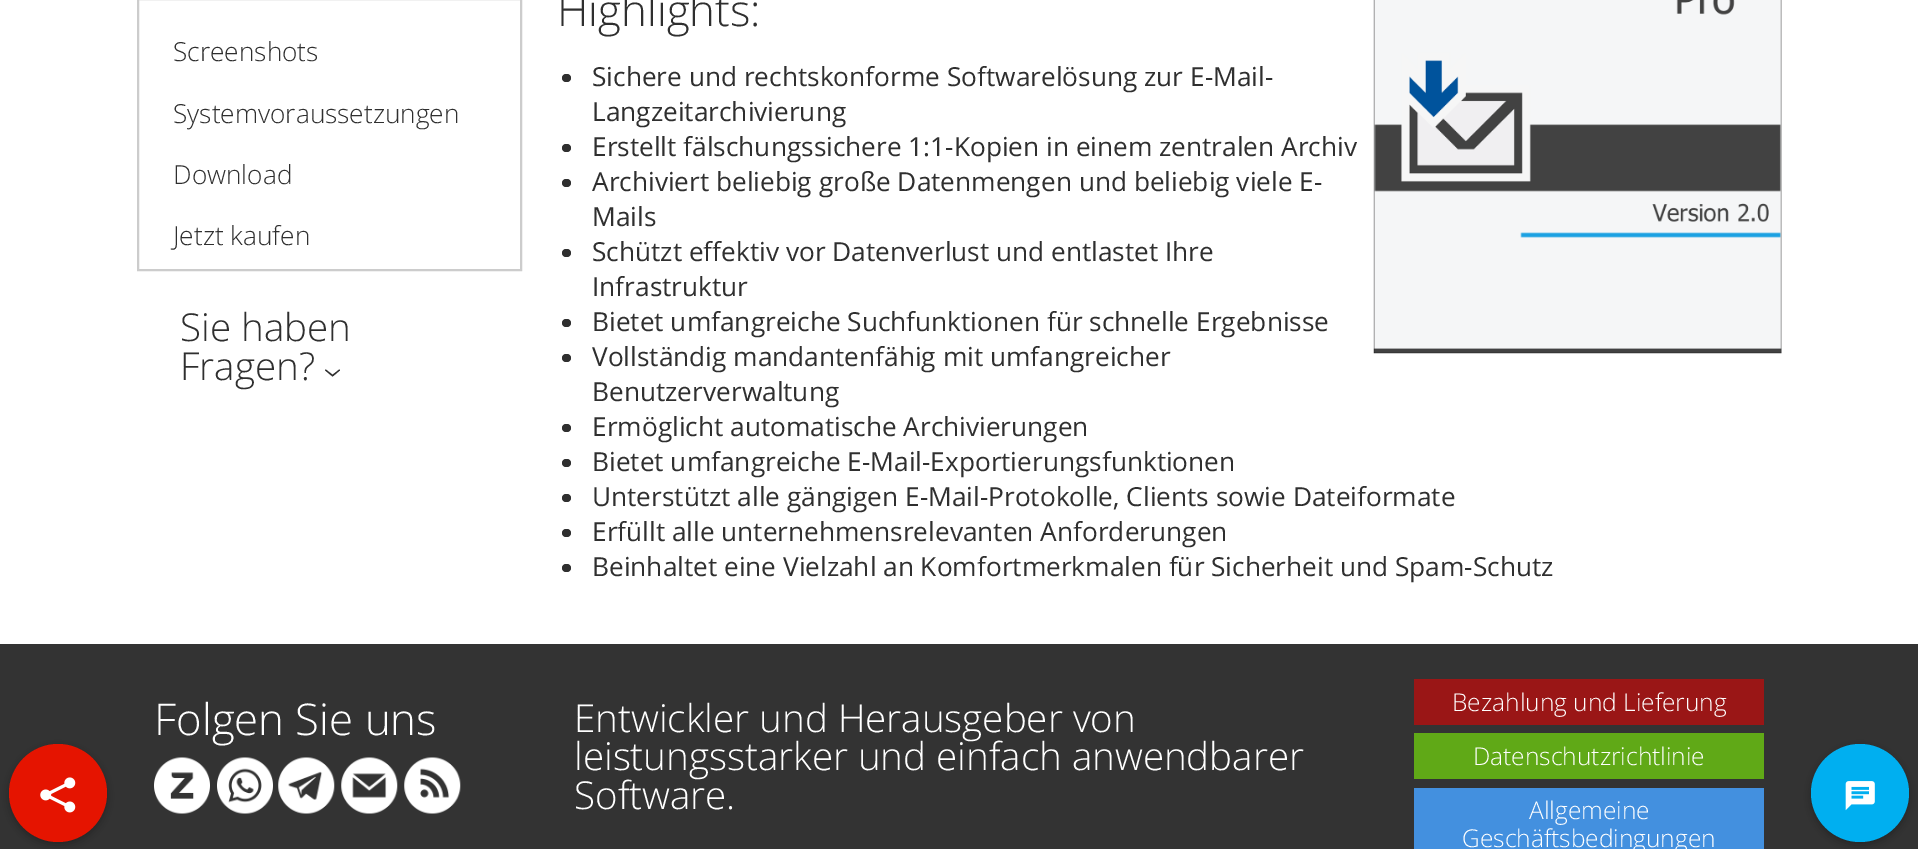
%!PS-Adobe-3.0
%%BoundingBox: 0 0 1918 849
%%LanguageLevel: 3
%%Pages: 1
%%EndComments
%%BeginProlog
/setink { 3 { 255 div 3 1 roll } repeat setrgbcolor } def
/usefont { [ exch dup neg 0 0 3 -1 roll 0 0 ] selectfont } def
/drawtext { setink usefont moveto show } def
/fillbox { setink rectfill } def
/setalpha { dup .setfillconstantalpha .setstrokeconstantalpha } def
/disc { newpath 0 360 arc closepath } def
/rrect { 5 dict begin { /r /h /w /y /x } { exch def } forall
  x r add y moveto x w add y 2 copy h add r arct x w add y h add x 1 index r arct
  x y h add x y r arct x y 2 copy exch w add exch r arct closepath end } def
/softshadow { 12 dict begin { /a /b /q /h /w /y /x } { exch def } forall gsave /was 0 def
  9 -2 -9 { dup b mul 4 div /e exch def 1 sub .425 mul 2.718 exch exp 1 add a .99 .min exch div /now exch def
    1 1 now sub 1 was sub div sub setalpha /was now def
    w h .min e 2 mul add 0 gt { x e sub y e sub w e 2 mul add h e 2 mul add
      q e add b .6 mul add w h .min 2 div e add .min 0 .max rrect fill } if } for grestore end } def
/drawimage { 5 dict begin { /h /w /y /x /name } { exch def } forall
  gsave x y translate w h scale
  w h 8 [w 0 0 h 0 0] name (r) file false 3 colorimage grestore end } def
%%EndProlog
%%BeginSetup
<< /PageSize [1918 849] /PageUsesTransparency true >> setpagedevice
%%EndSetup
%%Page: 1 1
0 .pushpdf14devicefilter
0 849 translate 1 -1 scale
4 setmiterlimit
0 0 1918 849 255 255 255 fillbox
204 204 204 setink
2 setlinewidth
138 -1 383 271 rectstroke
(Screenshots) 173 61 /OpenSans-Light 26.25 47 47 47 drawtext
(Systemvoraussetzungen) 173 123 /OpenSans-Light 26.25 47 47 47 drawtext
(Download) 173 184 /OpenSans-Light 26.25 47 47 47 drawtext
(Jetzt kaufen) 173 245 /OpenSans-Light 26.25 47 47 47 drawtext
(Sie haben) 180 341 /OpenSans-Light 38.5 47 47 47 drawtext
(Fragen?) 180 380 /OpenSans-Light 38.5 47 47 47 drawtext
gsave 322 368 translate 90 rotate 0 0 moveto (›) show grestore
(Highlights:) 557 26 /OpenSans-Light 43.75 47 47 47 drawtext
(assets/img1.rgb) 1373 0 409 354 drawimage
562 74 9 8 4 rrect fill
(Sichere und rechtskonforme Softwarelösung zur E-Mail-) 592 86 /OpenSans-Regular 26.25 47 47 47 drawtext
(Langzeitarchivierung) 592 121 /OpenSans-Regular 26.25 47 47 47 drawtext
562 144 9 8 4 rrect fill
(Erstellt fälschungssichere 1:1-Kopien in einem zentralen Archiv) 592 156 /OpenSans-Regular 26.25 47 47 47 drawtext
562 179 9 8 4 rrect fill
(Archiviert beliebig große Datenmengen und beliebig viele E-) 592 191 /OpenSans-Regular 26.25 47 47 47 drawtext
(Mails) 592 226 /OpenSans-Regular 26.25 47 47 47 drawtext
562 249 9 8 4 rrect fill
(Schützt effektiv vor Datenverlust und entlastet Ihre) 592 261 /OpenSans-Regular 26.25 47 47 47 drawtext
(Infrastruktur) 592 296 /OpenSans-Regular 26.25 47 47 47 drawtext
562 319 9 8 4 rrect fill
(Bietet umfangreiche Suchfunktionen für schnelle Ergebnisse) 592 331 /OpenSans-Regular 26.25 47 47 47 drawtext
562 354 9 8 4 rrect fill
(Vollständig mandantenfähig mit umfangreicher) 592 366 /OpenSans-Regular 26.25 47 47 47 drawtext
(Benutzerverwaltung) 592 401 /OpenSans-Regular 26.25 47 47 47 drawtext
562 424 9 8 4 rrect fill
(Ermöglicht automatische Archivierungen) 592 436 /OpenSans-Regular 26.25 47 47 47 drawtext
562 459 9 8 4 rrect fill
(Bietet umfangreiche E-Mail-Exportierungsfunktionen) 592 471 /OpenSans-Regular 26.25 47 47 47 drawtext
562 494 9 8 4 rrect fill
(Unterstützt alle gängigen E-Mail-Protokolle, Clients sowie Dateiformate) 592 506 /OpenSans-Regular 26.25 47 47 47 drawtext
562 529 9 8 4 rrect fill
(Erfüllt alle unternehmensrelevanten Anforderungen) 592 541 /OpenSans-Regular 26.25 47 47 47 drawtext
562 564 9 8 4 rrect fill
(Beinhaltet eine Vielzahl an Komfortmerkmalen für Sicherheit und Spam-Schutz) 592 576 /OpenSans-Regular 26.25 47 47 47 drawtext
0 644 1918 205 51 51 51 fillbox
0 0 0 setink
9 747 98 98 49 4.5 0.26 softshadow
229 20 0 setink
58 793 49 disc fill
(assets/img2.rgb) 40 777 36 36 drawimage
(Folgen Sie uns) 154 735 /OpenSans-Light 43.75 255 255 255 drawtext
(assets/img3.rgb) 154 757 56 57 drawimage
(assets/img4.rgb) 217 757 56 57 drawimage
(assets/img5.rgb) 278 757 57 57 drawimage
(assets/img6.rgb) 341 757 57 57 drawimage
(assets/img7.rgb) 404 757 57 57 drawimage
(Entwickler und Herausgeber von) 574 732 /OpenSans-Light 38.5 255 255 255 drawtext
(leistungsstarker und einfach anwendbarer) 574 770 /OpenSans-Light 38.5 255 255 255 drawtext
(Software.) 574 809 /OpenSans-Light 38.5 255 255 255 drawtext
1414 679 350 46 154 22 22 fillbox
(Bezahlung und Lieferung) 1452 711 /OpenSans-Light 24.5 255 255 255 drawtext
1414 733 350 46 96 169 23 fillbox
(Datenschutzrichtlinie) 1473 765 /OpenSans-Light 24.5 255 255 255 drawtext
1414 788 350 61 67 144 223 fillbox
(Allgemeine) 1529 819 /OpenSans-Light 24.5 255 255 255 drawtext
(Geschäftsbedingungen) 1462 847 /OpenSans-Light 24.5 255 255 255 drawtext
0 0 0 setink
1811 747 98 98 49 4.5 0.26 softshadow
0 175 240 setink
1860 793 49 disc fill
(assets/img8.rgb) 1845 781 30 30 drawimage
.poppdf14devicefilter showpage
%%EOF
